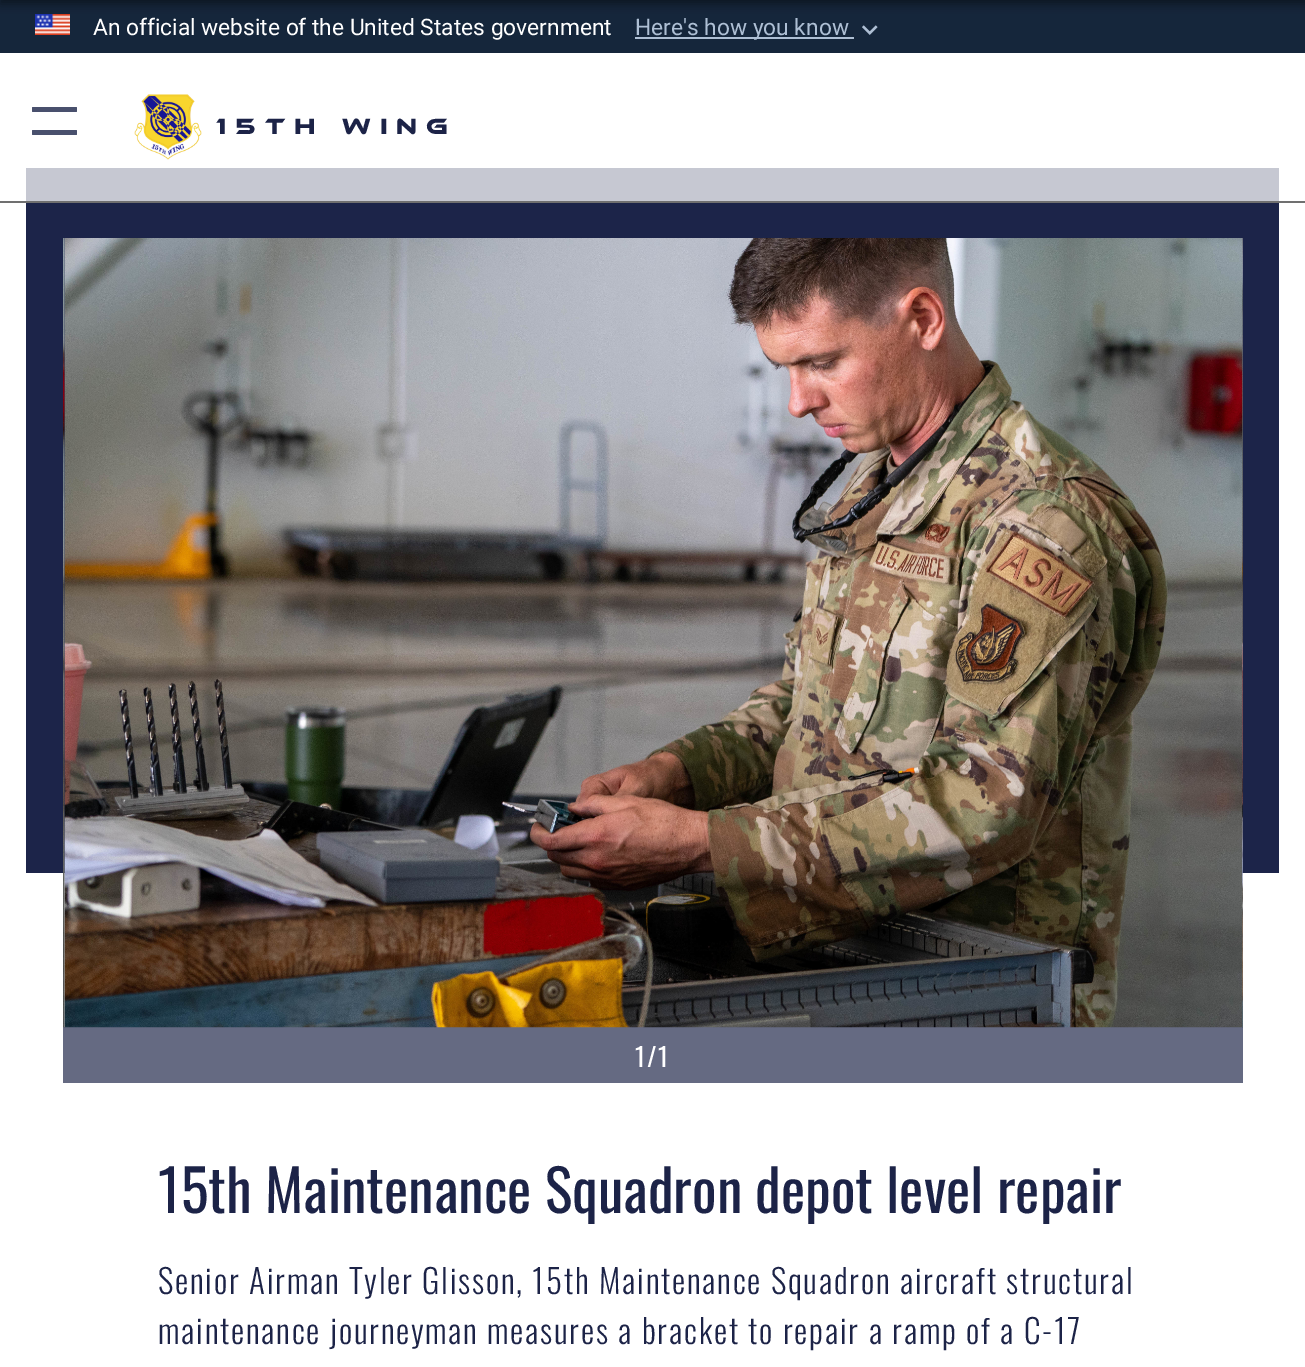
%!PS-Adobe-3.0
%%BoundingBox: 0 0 1305 1367
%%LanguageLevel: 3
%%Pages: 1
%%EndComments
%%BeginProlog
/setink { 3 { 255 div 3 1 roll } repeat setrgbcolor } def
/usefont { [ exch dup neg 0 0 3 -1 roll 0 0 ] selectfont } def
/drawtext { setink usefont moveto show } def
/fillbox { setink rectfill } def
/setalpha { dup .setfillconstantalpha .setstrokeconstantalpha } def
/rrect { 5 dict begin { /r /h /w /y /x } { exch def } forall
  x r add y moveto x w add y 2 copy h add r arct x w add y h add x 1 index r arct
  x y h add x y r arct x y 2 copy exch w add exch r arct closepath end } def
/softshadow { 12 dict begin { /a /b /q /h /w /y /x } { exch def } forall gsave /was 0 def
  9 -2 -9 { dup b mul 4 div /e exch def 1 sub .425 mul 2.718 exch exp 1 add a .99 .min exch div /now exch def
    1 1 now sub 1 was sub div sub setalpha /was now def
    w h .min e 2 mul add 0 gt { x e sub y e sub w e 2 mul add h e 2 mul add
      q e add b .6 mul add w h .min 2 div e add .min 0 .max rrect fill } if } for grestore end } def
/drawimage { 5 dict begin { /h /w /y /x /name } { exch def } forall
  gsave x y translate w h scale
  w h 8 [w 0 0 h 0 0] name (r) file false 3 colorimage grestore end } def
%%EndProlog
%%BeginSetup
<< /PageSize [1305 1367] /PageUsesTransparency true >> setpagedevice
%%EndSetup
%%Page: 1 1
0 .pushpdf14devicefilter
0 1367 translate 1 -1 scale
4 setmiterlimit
0 0 1305 1367 255 255 255 fillbox
0 0 1305 53 21 38 59 fillbox
(assets/img1.rgb) 35 14 35 21 drawimage
(An official website of the United States government) 93 35 /Roboto-Regular 22.75 255 255 255 drawtext
635 37 219 2 174 191 212 fillbox
(Here's how you know) 635 35 /Roboto-Regular 22.75 174 191 212 drawtext
(assets/img2.rgb) 862 25 16 10 drawimage
2 4 6 setink
0 -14 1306 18 0 4.5 0.5 softshadow
0 201 1305 2 112 112 112 fillbox
73 80 109 setink
32 107 45 5 1 rrect fill
32 130 45 5 1 rrect fill
(assets/img3.rgb) 134 94 68 66 drawimage
/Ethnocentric-Regular 22.75 usefont
28 35 71 setink
216 134 moveto 9 0 (15th Wing) ashow
26 203 1253 670 28 36 73 fillbox
26 168 1253 33 198 200 210 fillbox
63 1027 1180 56 101 106 130 fillbox
(assets/img4.rgb) 63 238 3 790 drawimage
(assets/img5.rgb) 64 238 1179 790 drawimage
(assets/img6.rgb) 1242 238 1 790 drawimage
/Oswald-Regular 26 usefont
255 255 255 setink
635 1067 moveto 1.75 0 (1/1) ashow
(15th Maintenance Squadron depot level repair) 158 1213 /Oswald-Regular 57.75 28 35 71 drawtext
/Oswald-Light 33.25 usefont
158 1294 moveto 1.75 0 (Senior Airman Tyler Glisson, 15th Maintenance Squadron aircraft structural) ashow
158 1344 moveto 1.75 0 (maintenance journeyman measures a bracket to repair a ramp of a C-17) ashow
.poppdf14devicefilter showpage
%%EOF
